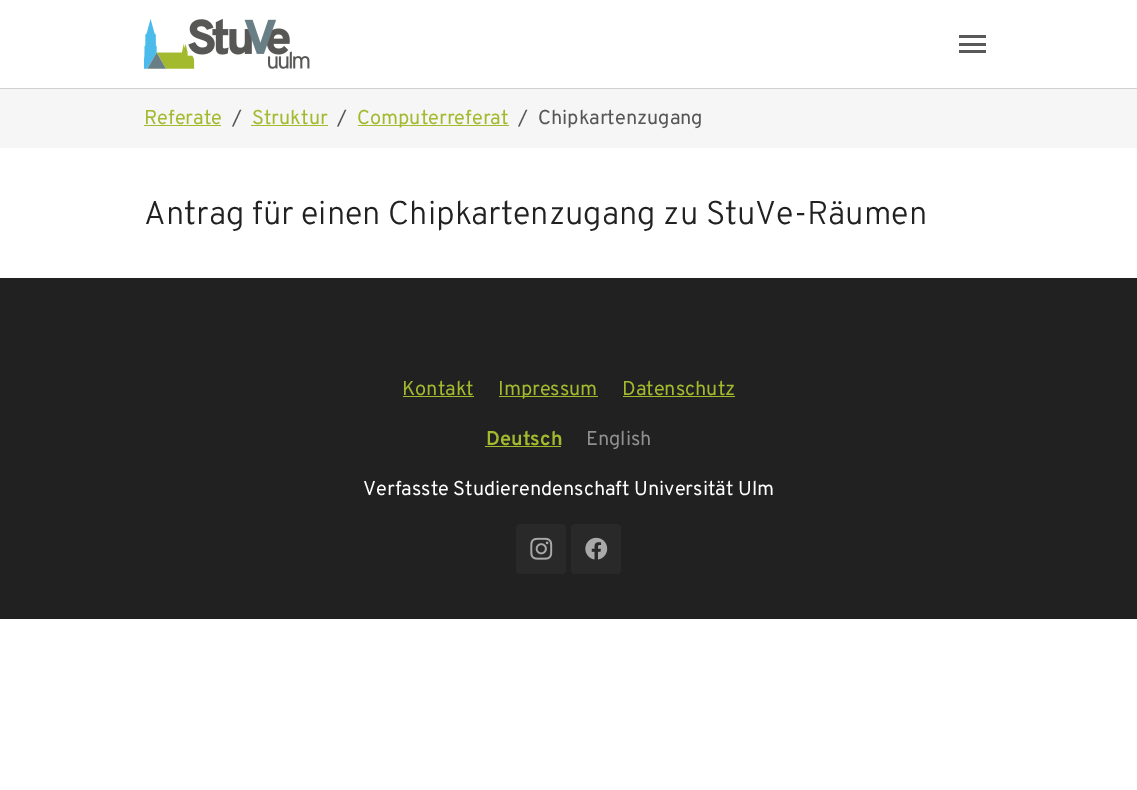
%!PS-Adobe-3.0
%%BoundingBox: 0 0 1137 790
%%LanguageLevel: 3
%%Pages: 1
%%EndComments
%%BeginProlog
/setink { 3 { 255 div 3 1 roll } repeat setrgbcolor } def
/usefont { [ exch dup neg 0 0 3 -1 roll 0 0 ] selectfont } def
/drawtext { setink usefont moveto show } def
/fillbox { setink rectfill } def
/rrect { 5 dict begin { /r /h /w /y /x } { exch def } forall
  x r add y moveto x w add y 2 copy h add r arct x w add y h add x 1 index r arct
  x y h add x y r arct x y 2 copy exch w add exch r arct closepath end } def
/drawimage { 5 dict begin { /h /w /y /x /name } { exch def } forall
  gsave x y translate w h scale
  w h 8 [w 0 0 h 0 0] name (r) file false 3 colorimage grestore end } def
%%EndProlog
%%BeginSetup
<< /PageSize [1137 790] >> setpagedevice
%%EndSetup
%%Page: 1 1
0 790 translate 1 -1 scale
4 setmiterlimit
0 0 1137 790 255 255 255 fillbox
209 209 209 setink
0 88 moveto 0 89 lineto 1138 89 lineto 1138 1 lineto 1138 88 lineto closepath fill
(assets/img1.rgb) 144 19 166 50 drawimage
959 43 27 3 89 89 89 fillbox
959 35 27 3 89 89 89 fillbox
959 50 27 3 89 89 89 fillbox
0 89 1137 59 246 246 246 fillbox
(Referate) 144 124 /Overpass-Regular 20 164 186 46 drawtext
144 125 77 1 164 186 46 fillbox
(/) 232 124 /Overpass-Regular 20 86 86 86 drawtext
(Struktur) 252 124 /Overpass-Regular 20 164 186 46 drawtext
251 125 77 1 164 186 46 fillbox
(/) 337 124 /Overpass-Regular 20 86 86 86 drawtext
358 125 151 1 164 186 46 fillbox
(Computerreferat) 357 124 /Overpass-Regular 20 164 186 46 drawtext
(/) 518 124 /Overpass-Regular 20 86 86 86 drawtext
(Chipkartenzugang) 538 124 /Overpass-Regular 20 86 86 86 drawtext
(Antrag für einen Chipkartenzugang zu StuVe-Räumen) 144 224 /Overpass-Light 32.8 33 33 33 drawtext
0 278 1137 341 33 33 33 fillbox
(Kontakt) 402 395 /Overpass-Regular 20 164 186 46 drawtext
403 396 71 1 164 186 46 fillbox
499 396 99 1 164 186 46 fillbox
(Impressum) 498 395 /Overpass-Regular 20 164 186 46 drawtext
(Datenschutz) 622 395 /Overpass-Regular 20 164 186 46 drawtext
623 396 112 1 164 186 46 fillbox
(Deutsch) 486 445 /Overpass-Bold 20 164 186 46 drawtext
485 446 76 1 164 186 46 fillbox
(English) 586 445 /Overpass-Regular 20 144 144 144 drawtext
(Verfasste Studierendenschaft Universität Ulm) 363 495 /Overpass-Regular 20 255 255 255 drawtext
41 41 41 setink
516 524 50 50 4 rrect fill
(assets/img2.rgb) 530 537 23 23 drawimage
571 524 50 50 4 rrect fill
(assets/img3.rgb) 585 537 23 23 drawimage
showpage
%%EOF
